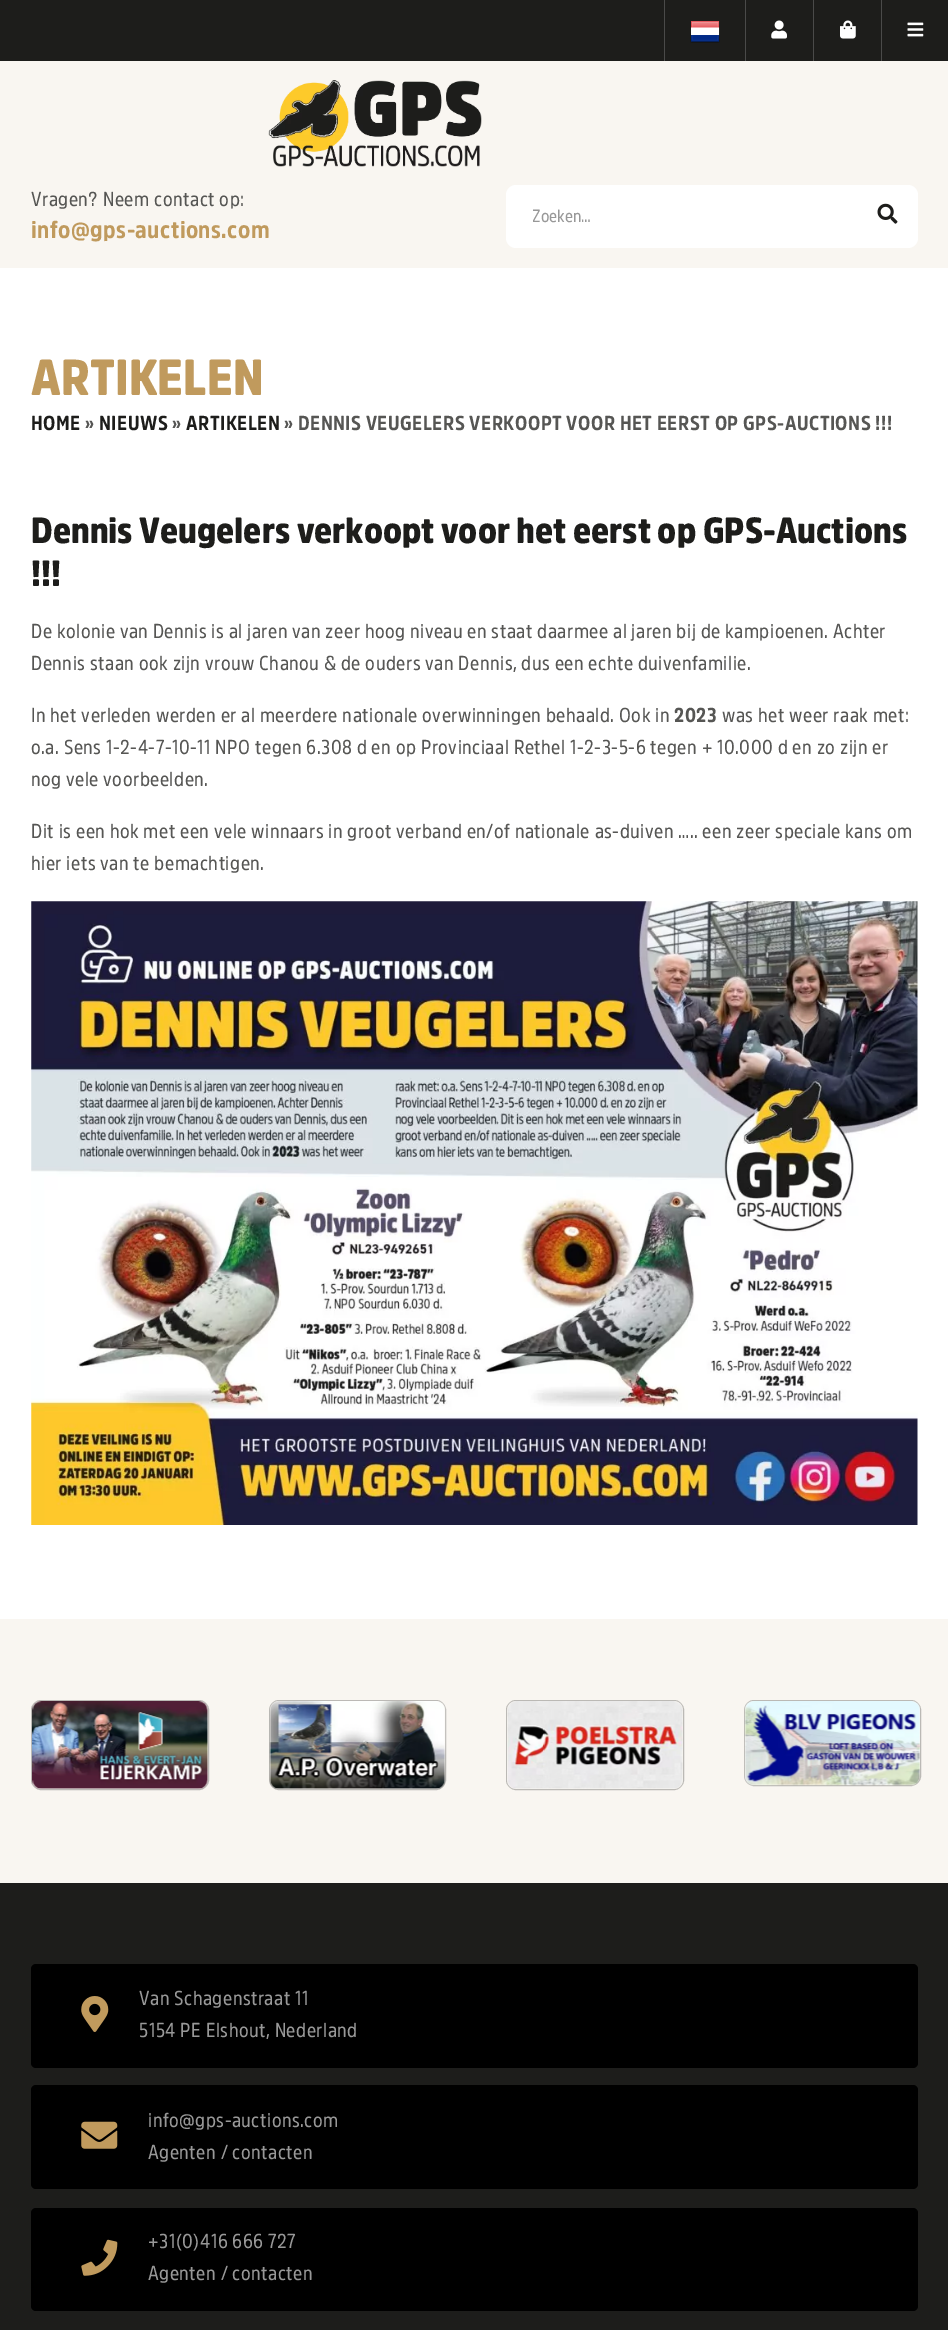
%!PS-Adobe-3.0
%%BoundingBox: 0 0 948 2330
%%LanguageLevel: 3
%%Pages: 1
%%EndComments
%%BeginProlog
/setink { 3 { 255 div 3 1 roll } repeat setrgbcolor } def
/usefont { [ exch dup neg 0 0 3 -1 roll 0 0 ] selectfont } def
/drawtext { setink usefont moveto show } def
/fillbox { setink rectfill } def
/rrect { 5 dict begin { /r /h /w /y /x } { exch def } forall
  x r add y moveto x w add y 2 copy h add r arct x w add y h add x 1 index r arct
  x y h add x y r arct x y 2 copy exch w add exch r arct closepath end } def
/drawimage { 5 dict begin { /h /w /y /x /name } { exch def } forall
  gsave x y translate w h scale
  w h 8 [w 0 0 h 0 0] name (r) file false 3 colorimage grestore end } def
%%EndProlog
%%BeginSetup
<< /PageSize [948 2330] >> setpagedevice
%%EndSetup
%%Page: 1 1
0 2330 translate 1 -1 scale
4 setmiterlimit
0 0 948 2330 29 29 27 fillbox
745 0 1 61 74 74 73 fillbox
664 0 1 61 74 74 73 fillbox
(assets/img1.rgb) 690 21 30 22 drawimage
813 0 1 61 74 74 73 fillbox
(assets/img2.rgb) 771 20 16 19 drawimage
881 0 1 61 74 74 73 fillbox
(assets/img3.rgb) 840 20 16 19 drawimage
(assets/img4.rgb) 907 22 17 15 drawimage
0 61 948 207 249 246 241 fillbox
(assets/img5.rgb) 268 80 214 87 drawimage
/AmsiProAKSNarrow-Regular 20 usefont
86 86 84 setink
31 206 moveto 0.5 0 (Vragen? Neem contact op:) ashow
/AmsiProAKSNarrow-Bold 24 usefont
192 154 93 setink
31 238 moveto 0.5 0 (info@gps-auctions.com) ashow
255 255 255 setink
506 185 412 63 10 rrect fill
gsave
533 204 310 26 rectclip
(Zoeken…) 532 222 /AmsiProAKSNarrow-Regular 17.5 152 152 152 drawtext
grestore
(assets/img6.rgb) 877 203 21 21 drawimage
0 268 948 1351 255 255 255 fillbox
(ARTIKELEN) 31 395 /AmsiProAKSNarrow-Black 50 192 154 93 drawtext
/AmsiProAKSNarrow-Bold 20 usefont
29 29 27 setink
31 430 moveto 0.5 0 (HOME) ashow
86 86 84 setink
85 430 moveto 0.5 0 (») ashow
29 29 27 setink
99 430 moveto 0.5 0 (NIEUWS) ashow
86 86 84 setink
172 430 moveto 0.5 0 (») ashow
29 29 27 setink
186 430 moveto 0.5 0 (ARTIKELEN) ashow
86 86 84 setink
284 430 moveto 0.5 0 (» DENNIS VEUGELERS VERKOOPT VOOR HET EERST OP GPS-AUCTIONS !!!) ashow
(Dennis Veugelers verkoopt voor het eerst op GPS-Auctions) 31 543 /AmsiProAKSNarrow-Black 36 29 29 27 drawtext
(!!!) 31 586 /AmsiProAKSNarrow-Black 36 29 29 27 drawtext
/AmsiProAKSNarrow-Regular 20 usefont
86 86 84 setink
31 638 moveto 0.5 0 (De kolonie van Dennis is al jaren van zeer hoog niveau en staat daarmee al jaren bij de kampioenen. Achter) ashow
31 670 moveto 0.5 0 (Dennis staan ook zijn vrouw Chanou & de ouders van Dennis, dus een echte duivenfamilie.) ashow
31 722 moveto 0.5 0 (In het verleden werden er al meerdere nationale overwinningen behaald. Ook in) ashow
/AmsiProAKSNarrow-Bold 20 usefont
674 722 moveto 0.5 0 (2023) ashow
/AmsiProAKSNarrow-Regular 20 usefont
722 722 moveto 0.5 0 (was het weer raak met:) ashow
31 754 moveto 0.5 0 (o.a. Sens 1-2-4-7-10-11 NPO tegen 6.308 d en op Provinciaal Rethel 1-2-3-5-6 tegen + 10.000 d en zo zijn er) ashow
31 786 moveto 0.5 0 (nog vele voorbeelden.) ashow
31 838 moveto 0.5 0 (Dit is een hok met een vele winnaars in groot verband en/of nationale as-duiven ….. een zeer speciale kans om) ashow
31 870 moveto 0.5 0 (hier iets van te bemachtigen.) ashow
(assets/img7.rgb) 31 901 887 624 drawimage
0 1619 948 264 249 246 241 fillbox
187 185 181 setink
31.5 1700.5 177 89 9.5 rrect stroke
(assets/img8.rgb) 32 1701 176 88 drawimage
269.5 1700.5 176 89 9.5 rrect stroke
(assets/img9.rgb) 269 1701 177 88 drawimage
506.5 1700.5 177 89 9.5 rrect stroke
(assets/img10.rgb) 507 1701 176 88 drawimage
744.5 1700.5 176 85 9.5 rrect stroke
(assets/img11.rgb) 744 1701 176 85 drawimage
0 0 0 setink
31 1964 887 104 5 rrect fill
(assets/img12.rgb) 81 1996 28 36 drawimage
152 152 152 setink
139 2005 moveto 0.5 0 (Van Schagenstraat 11) ashow
139 2037 moveto 0.5 0 (5154 PE Elshout, Nederland) ashow
0 0 0 setink
31 2085 887 104 5 rrect fill
(assets/img13.rgb) 81 2121 37 28 drawimage
152 152 152 setink
148 2127 moveto 0.5 0 (info@gps-auctions.com) ashow
148 2159 moveto 0.5 0 (Agenten / contacten) ashow
0 0 0 setink
31 2208 887 103 5 rrect fill
(assets/img14.rgb) 81 2239 37 37 drawimage
152 152 152 setink
148 2248 moveto 0.5 0 (+31\(0\)416 666 727) ashow
148 2280 moveto 0.5 0 (Agenten / contacten) ashow
showpage
%%EOF
